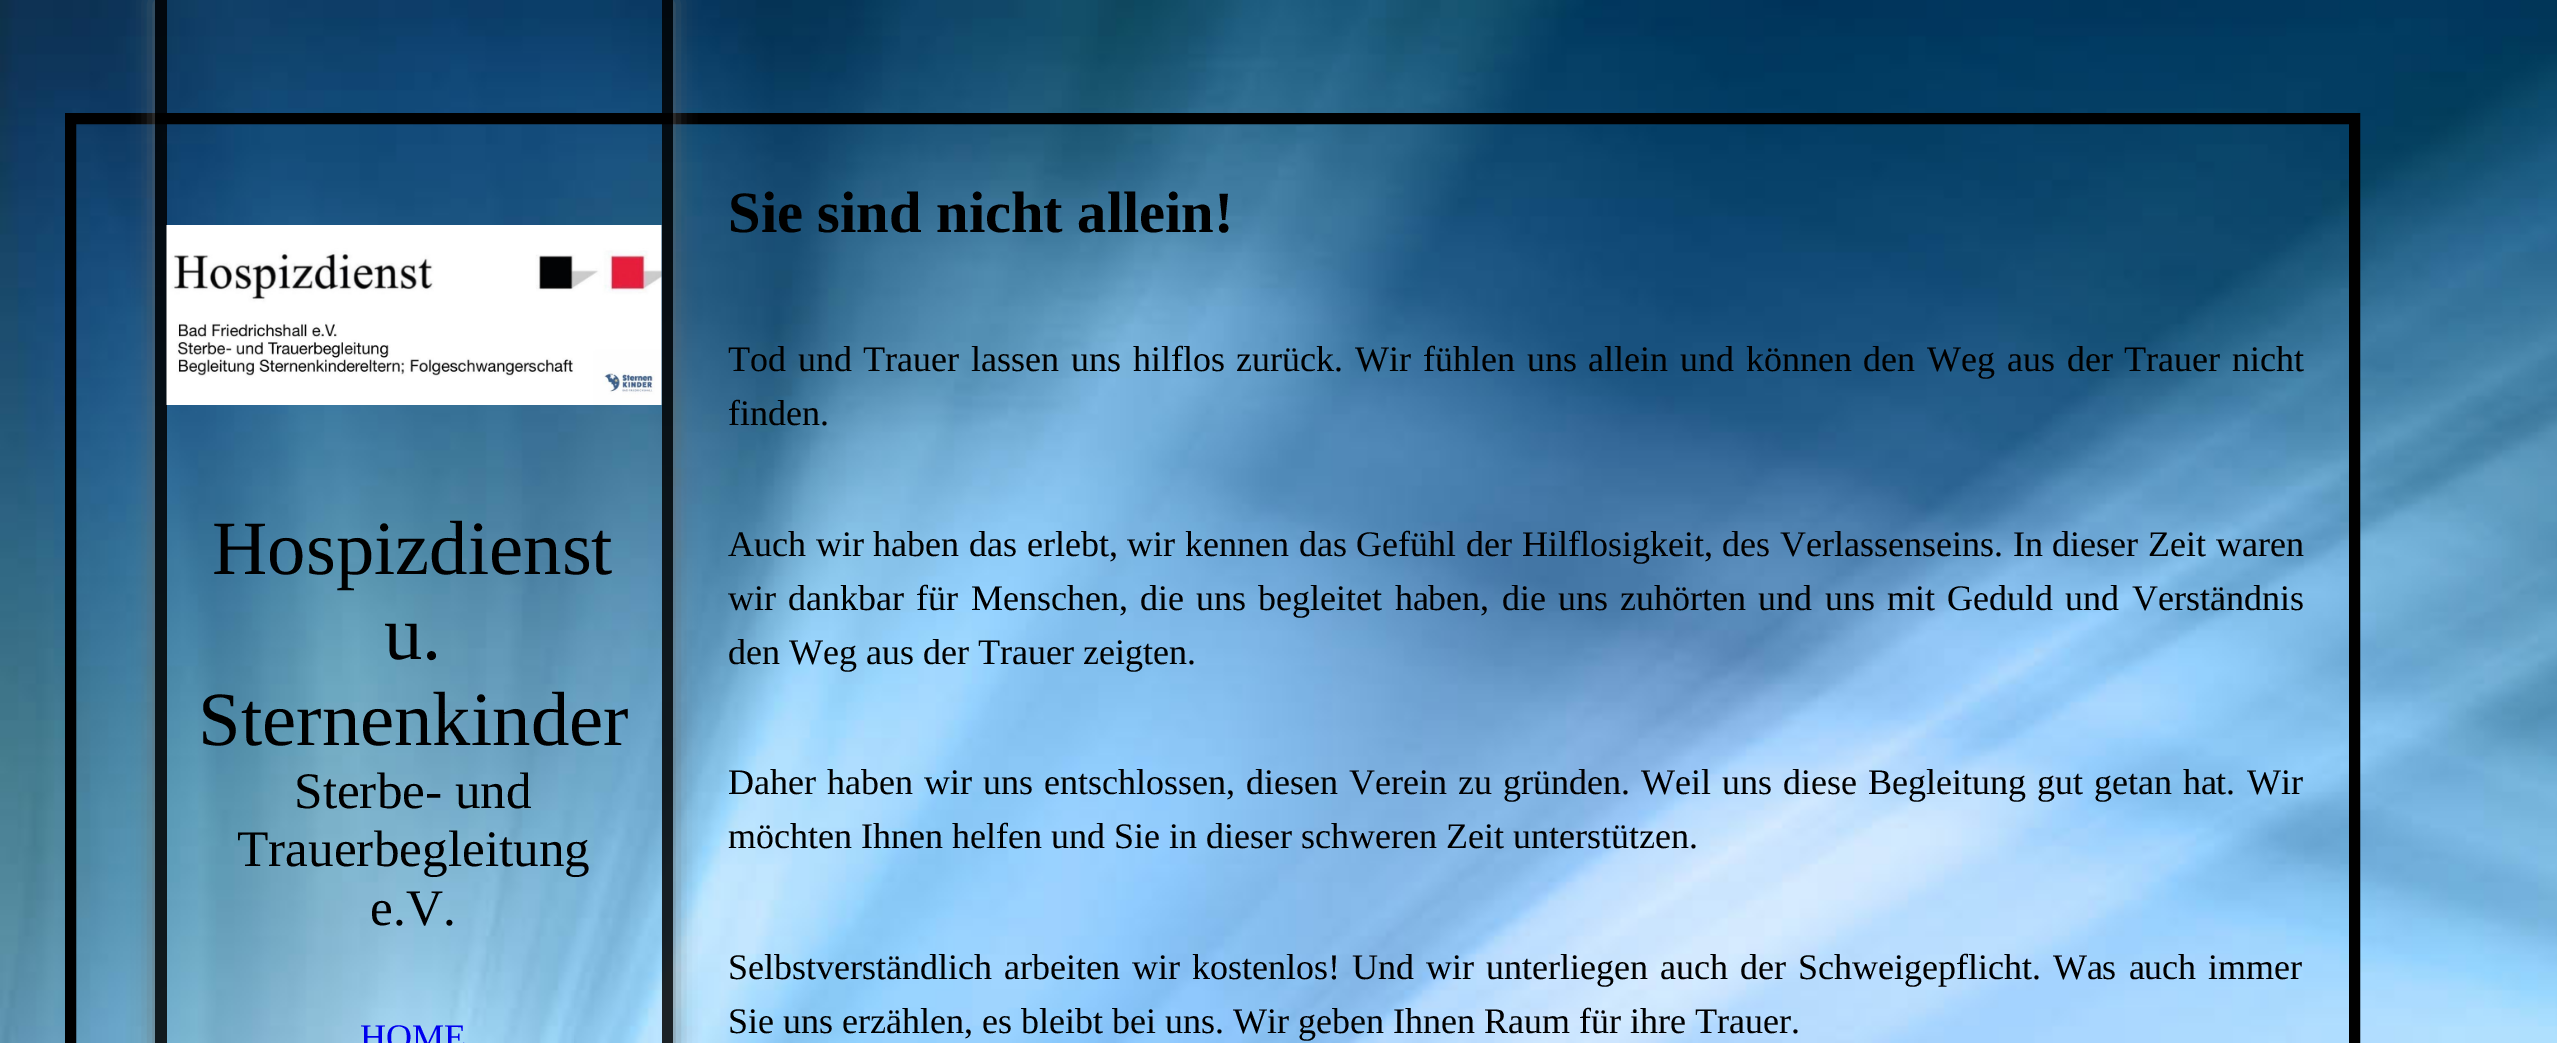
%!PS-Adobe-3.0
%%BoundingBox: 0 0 2557 1043
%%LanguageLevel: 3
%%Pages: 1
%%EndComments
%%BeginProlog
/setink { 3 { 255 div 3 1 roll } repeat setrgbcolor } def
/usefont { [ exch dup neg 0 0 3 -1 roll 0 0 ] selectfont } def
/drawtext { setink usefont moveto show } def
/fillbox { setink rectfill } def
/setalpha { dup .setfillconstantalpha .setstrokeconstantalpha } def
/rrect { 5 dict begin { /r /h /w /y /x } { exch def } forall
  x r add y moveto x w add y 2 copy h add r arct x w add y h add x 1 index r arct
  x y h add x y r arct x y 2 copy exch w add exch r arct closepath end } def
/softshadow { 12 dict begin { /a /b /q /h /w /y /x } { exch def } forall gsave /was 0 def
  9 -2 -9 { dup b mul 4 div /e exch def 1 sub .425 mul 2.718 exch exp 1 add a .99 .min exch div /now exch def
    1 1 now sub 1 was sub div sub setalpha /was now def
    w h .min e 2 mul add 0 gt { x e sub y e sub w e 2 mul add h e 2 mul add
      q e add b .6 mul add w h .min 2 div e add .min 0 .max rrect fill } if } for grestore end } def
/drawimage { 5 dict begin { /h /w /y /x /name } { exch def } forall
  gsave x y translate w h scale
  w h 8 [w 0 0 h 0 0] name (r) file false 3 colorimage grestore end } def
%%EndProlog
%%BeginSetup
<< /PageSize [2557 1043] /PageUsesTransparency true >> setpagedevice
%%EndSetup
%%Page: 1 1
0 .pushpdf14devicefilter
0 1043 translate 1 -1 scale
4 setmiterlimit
0 0 2557 1043 255 255 255 fillbox
(assets/img1.rgb) 0 0 2557 1043 drawimage
0 0 0 setink
11 setlinewidth
70.5 118.5 2284 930 rectstroke
gsave
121 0 moveto 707 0 lineto 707 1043 lineto 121 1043 lineto closepath 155 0 moveto 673 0 lineto 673 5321 lineto 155 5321 lineto closepath eoclip newpath
102 102 102 setink
155 0 518 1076 0 11 0.85 softshadow
grestore
0.85 setalpha
662 0 11 1043 0 0 0 fillbox
155 0 12 1043 0 0 0 fillbox
1 setalpha
(Sie sind nicht allein!) 728 232 /LiberationSerif-Bold 58.5 0 0 0 drawtext
/LiberationSerif-Regular 36 usefont
728 371 moveto 2.75 0 32 (Tod und Trauer lassen uns hilflos zurück. Wir fühlen uns allein und können den Weg aus der Trauer nicht) widthshow
(finden.) 728 425 /LiberationSerif-Regular 36 0 0 0 drawtext
728 556 moveto 0.7 0 32 (Auch wir haben das erlebt, wir kennen das Gefühl der Hilflosigkeit, des Verlassenseins. In dieser Zeit waren) widthshow
728 610 moveto 3.25 0 32 (wir dankbar für Menschen, die uns begleitet haben, die uns zuhörten und uns mit Geduld und Verständnis) widthshow
(den Weg aus der Trauer zeigten.) 728 664 /LiberationSerif-Regular 36 0 0 0 drawtext
728 794 moveto 2 0 32 (Daher haben wir uns entschlossen, diesen Verein zu gründen. Weil uns diese Begleitung gut getan hat.) widthshow
(Wir) 2247 794 /LiberationSerif-Regular 36 0 0 0 drawtext
(möchten Ihnen helfen und Sie in dieser schweren Zeit unterstützen.) 728 848 /LiberationSerif-Regular 36 0 0 0 drawtext
728 979 moveto 3 0 32 (Selbstverständlich arbeiten wir kostenlos! Und wir unterliegen auch der Schweigepflicht. Was auch immer) widthshow
(Sie uns erzählen, es bleibt bei uns. Wir geben Ihnen Raum für ihre Trauer.) 728 1033 /LiberationSerif-Regular 36 0 0 0 drawtext
(assets/img2.rgb) 166 225 496 180 drawimage
(Hospizdienst) 212 574 /LiberationSerif-Regular 76.75 0 0 0 drawtext
(u.) 384 659 /LiberationSerif-Regular 76.75 0 0 0 drawtext
(Sternenkinder) 198 745 /LiberationSerif-Regular 76.75 0 0 0 drawtext
(Sterbe- und) 294 808 /LiberationSerif-Regular 51.25 0 0 0 drawtext
(Trauerbegleitung) 237 866 /LiberationSerif-Regular 51.25 0 0 0 drawtext
(e.V.) 370 925 /LiberationSerif-Regular 51.25 0 0 0 drawtext
(HOME) 360 1049 /LiberationSerif-Regular 36 0 0 238 drawtext
.poppdf14devicefilter showpage
%%EOF
